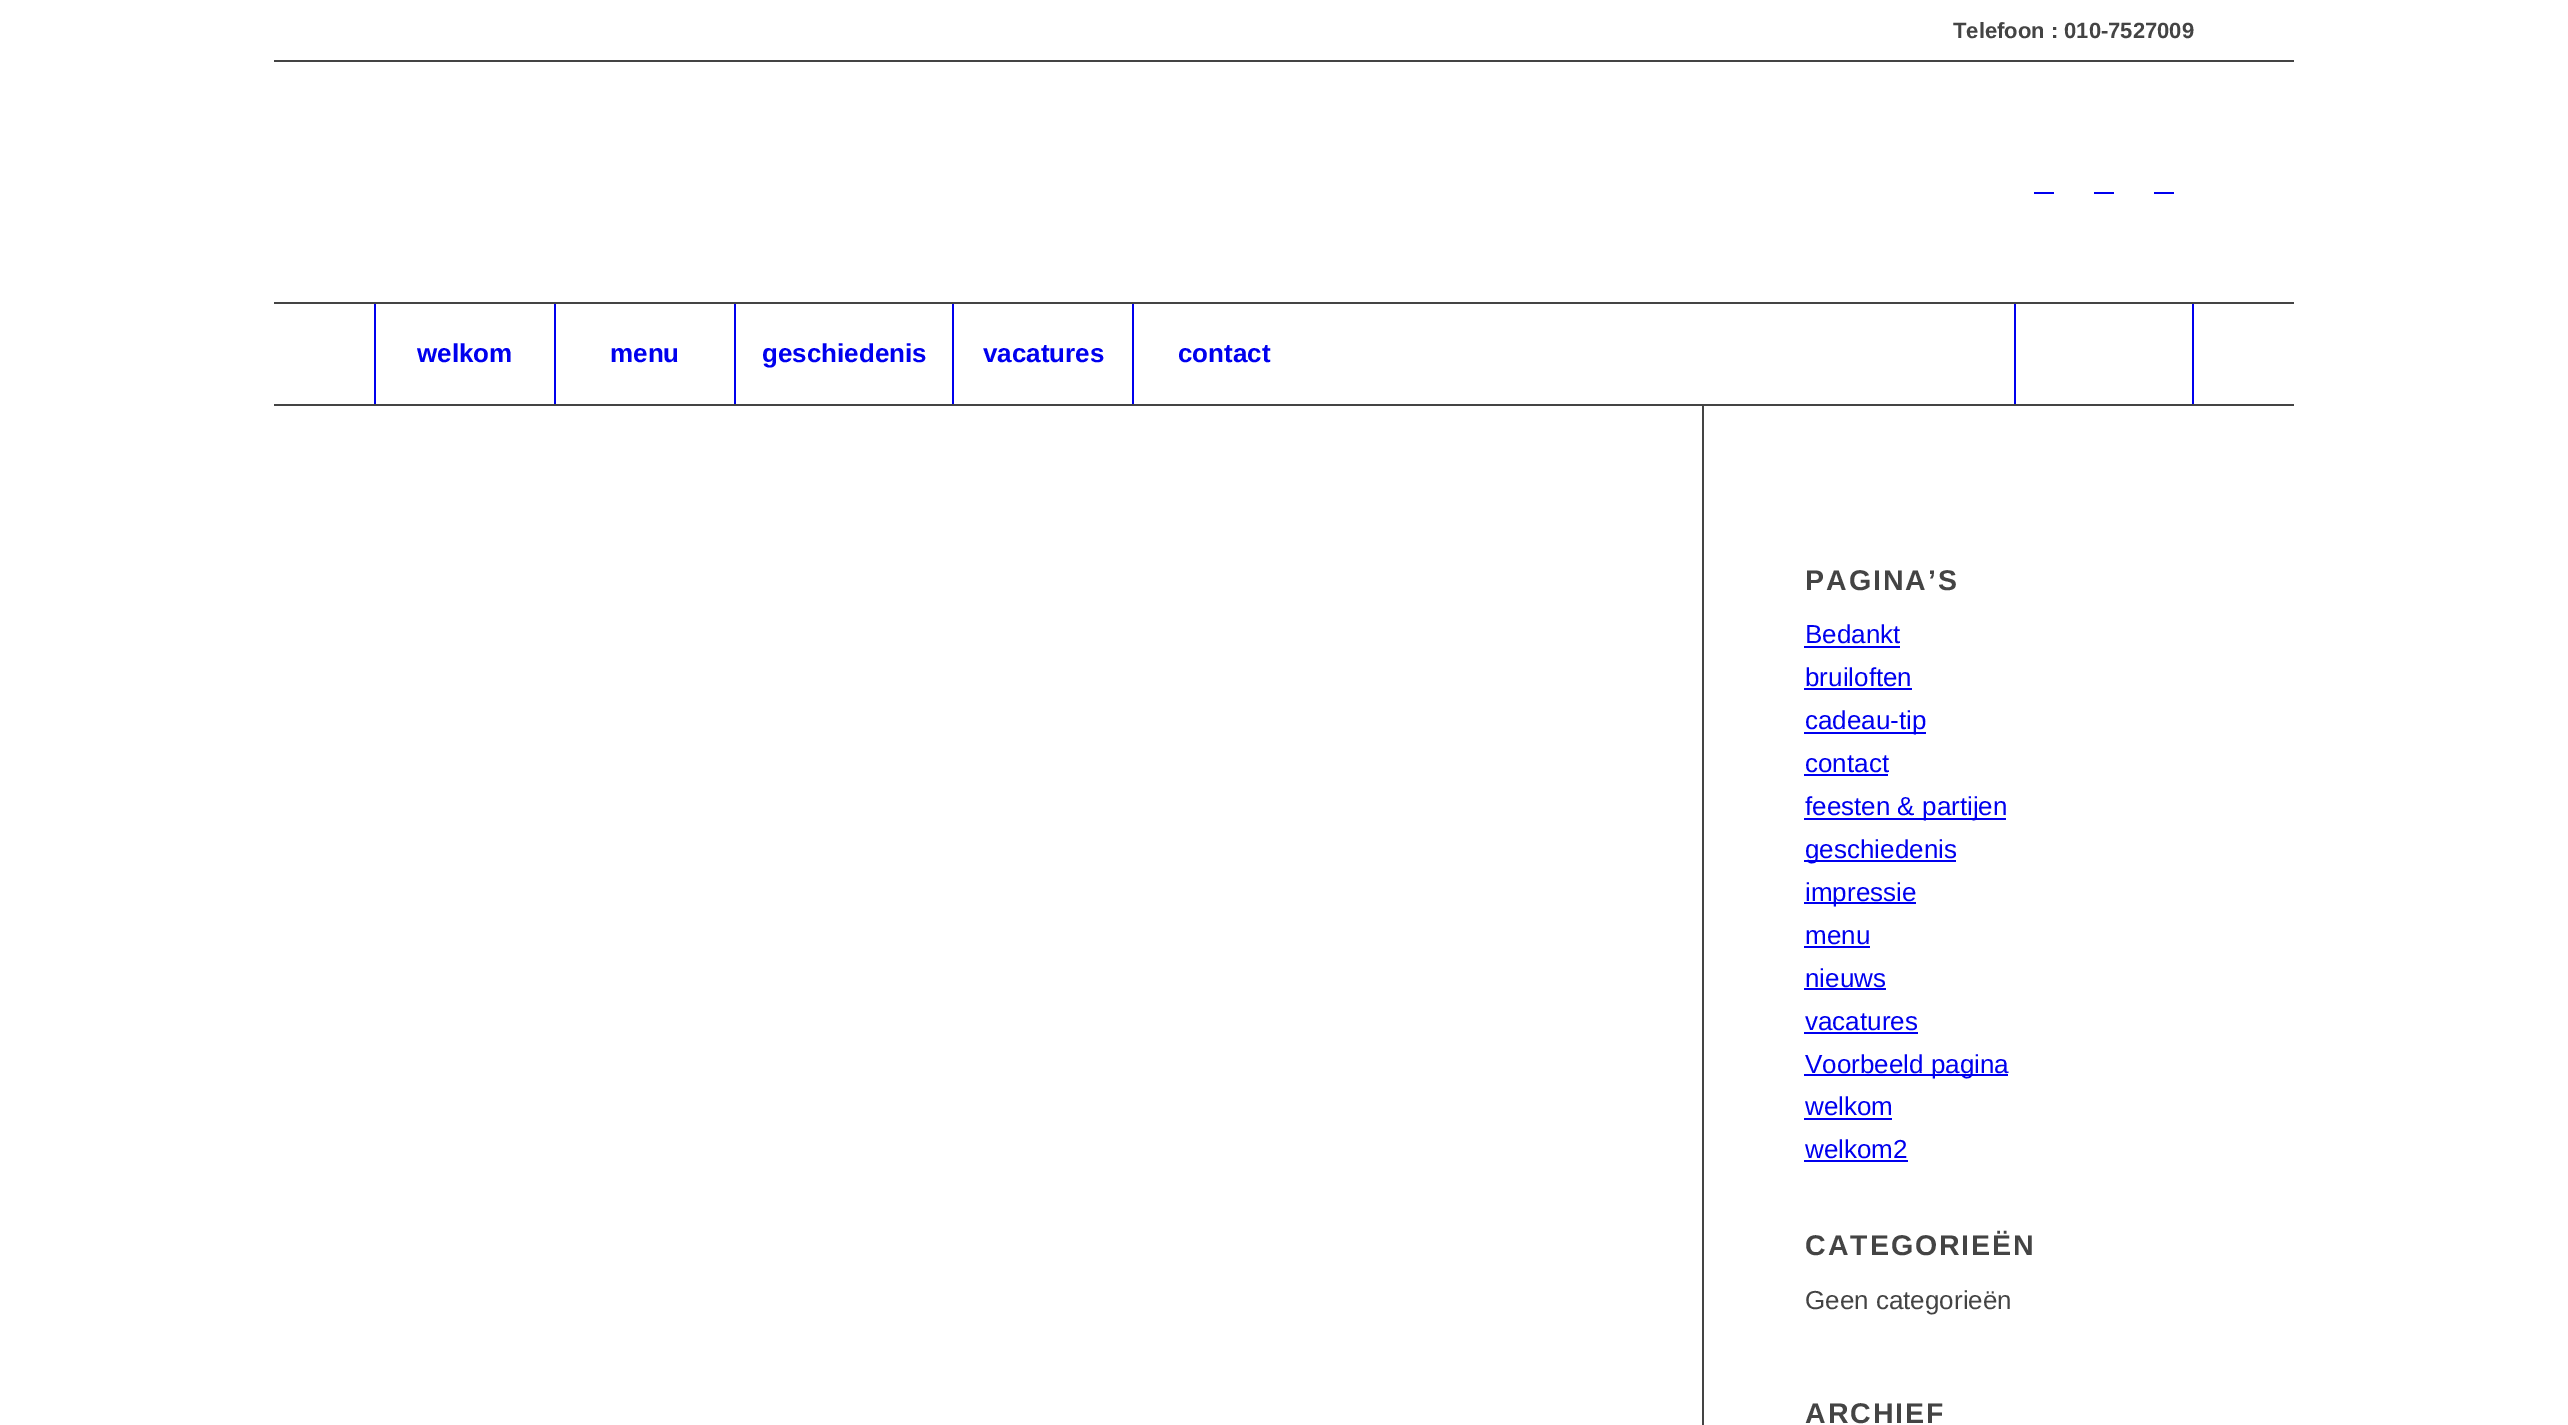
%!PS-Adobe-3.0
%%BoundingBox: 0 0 2568 1425
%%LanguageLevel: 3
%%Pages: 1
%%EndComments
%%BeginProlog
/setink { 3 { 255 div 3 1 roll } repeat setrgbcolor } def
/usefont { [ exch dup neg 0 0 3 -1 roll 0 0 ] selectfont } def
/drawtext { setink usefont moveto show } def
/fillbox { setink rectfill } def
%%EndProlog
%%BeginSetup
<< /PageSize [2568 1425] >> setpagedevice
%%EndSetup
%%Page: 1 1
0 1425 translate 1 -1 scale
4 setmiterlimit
0 0 2568 1425 255 255 255 fillbox
(Telefoon : 010-7527009) 1953 38 /LiberationSans-Bold 22 68 68 68 drawtext
274 60 2020 2 68 68 68 fillbox
2034 192 20 2 0 0 238 fillbox
2094 192 20 2 0 0 238 fillbox
2154 192 20 2 0 0 238 fillbox
274 302 2020 2 68 68 68 fillbox
374 304 2 100 0 0 238 fillbox
(welkom) 417 362 /LiberationSans-Bold 26 0 0 238 drawtext
554 304 2 100 0 0 238 fillbox
(menu) 610 362 /LiberationSans-Bold 26 0 0 238 drawtext
734 304 2 100 0 0 238 fillbox
(geschiedenis) 762 362 /LiberationSans-Bold 26 0 0 238 drawtext
952 304 2 100 0 0 238 fillbox
(vacatures) 983 362 /LiberationSans-Bold 26 0 0 238 drawtext
1132 304 2 100 0 0 238 fillbox
(contact) 1178 362 /LiberationSans-Bold 26 0 0 238 drawtext
2192 304 2 100 0 0 238 fillbox
2014 304 2 100 0 0 238 fillbox
274 404 2020 2 68 68 68 fillbox
1702 406 2 1019 68 68 68 fillbox
/LiberationSans-Bold 28.5 usefont
1805 590 moveto 2 0 (PAGINA’S) ashow
(Bedankt) 1805 643 /LiberationSans-Regular 26 0 0 238 drawtext
1804 646 96 2 0 0 238 fillbox
(bruiloften) 1805 686 /LiberationSans-Regular 26 0 0 238 drawtext
1804 688 108 2 0 0 238 fillbox
1804 732 122 2 0 0 238 fillbox
(cadeau-tip) 1805 729 /LiberationSans-Regular 26 0 0 238 drawtext
(contact) 1805 772 /LiberationSans-Regular 26 0 0 238 drawtext
1804 774 84 2 0 0 238 fillbox
1804 818 202 2 0 0 238 fillbox
(feesten & partijen) 1805 815 /LiberationSans-Regular 26 0 0 238 drawtext
1804 860 152 2 0 0 238 fillbox
(geschiedenis) 1805 858 /LiberationSans-Regular 26 0 0 238 drawtext
1804 902 112 2 0 0 238 fillbox
(impressie) 1805 901 /LiberationSans-Regular 26 0 0 238 drawtext
(menu) 1805 944 /LiberationSans-Regular 26 0 0 238 drawtext
1804 946 66 2 0 0 238 fillbox
(nieuws) 1805 987 /LiberationSans-Regular 26 0 0 238 drawtext
1804 988 82 2 0 0 238 fillbox
(vacatures) 1805 1030 /LiberationSans-Regular 26 0 0 238 drawtext
1804 1032 114 2 0 0 238 fillbox
1804 1074 204 2 0 0 238 fillbox
(Voorbeeld pagina) 1805 1073 /LiberationSans-Regular 26 0 0 238 drawtext
(welkom) 1805 1115 /LiberationSans-Regular 26 0 0 238 drawtext
1804 1118 88 2 0 0 238 fillbox
(welkom2) 1805 1158 /LiberationSans-Regular 26 0 0 238 drawtext
1804 1160 104 2 0 0 238 fillbox
/LiberationSans-Bold 28.5 usefont
68 68 68 setink
1805 1255 moveto 2 0 (CATEGORIEËN) ashow
(Geen categorieën) 1805 1309 /LiberationSans-Regular 26 68 68 68 drawtext
/LiberationSans-Bold 28.5 usefont
1805 1423 moveto 2 0 (ARCHIEF) ashow
showpage
%%EOF
